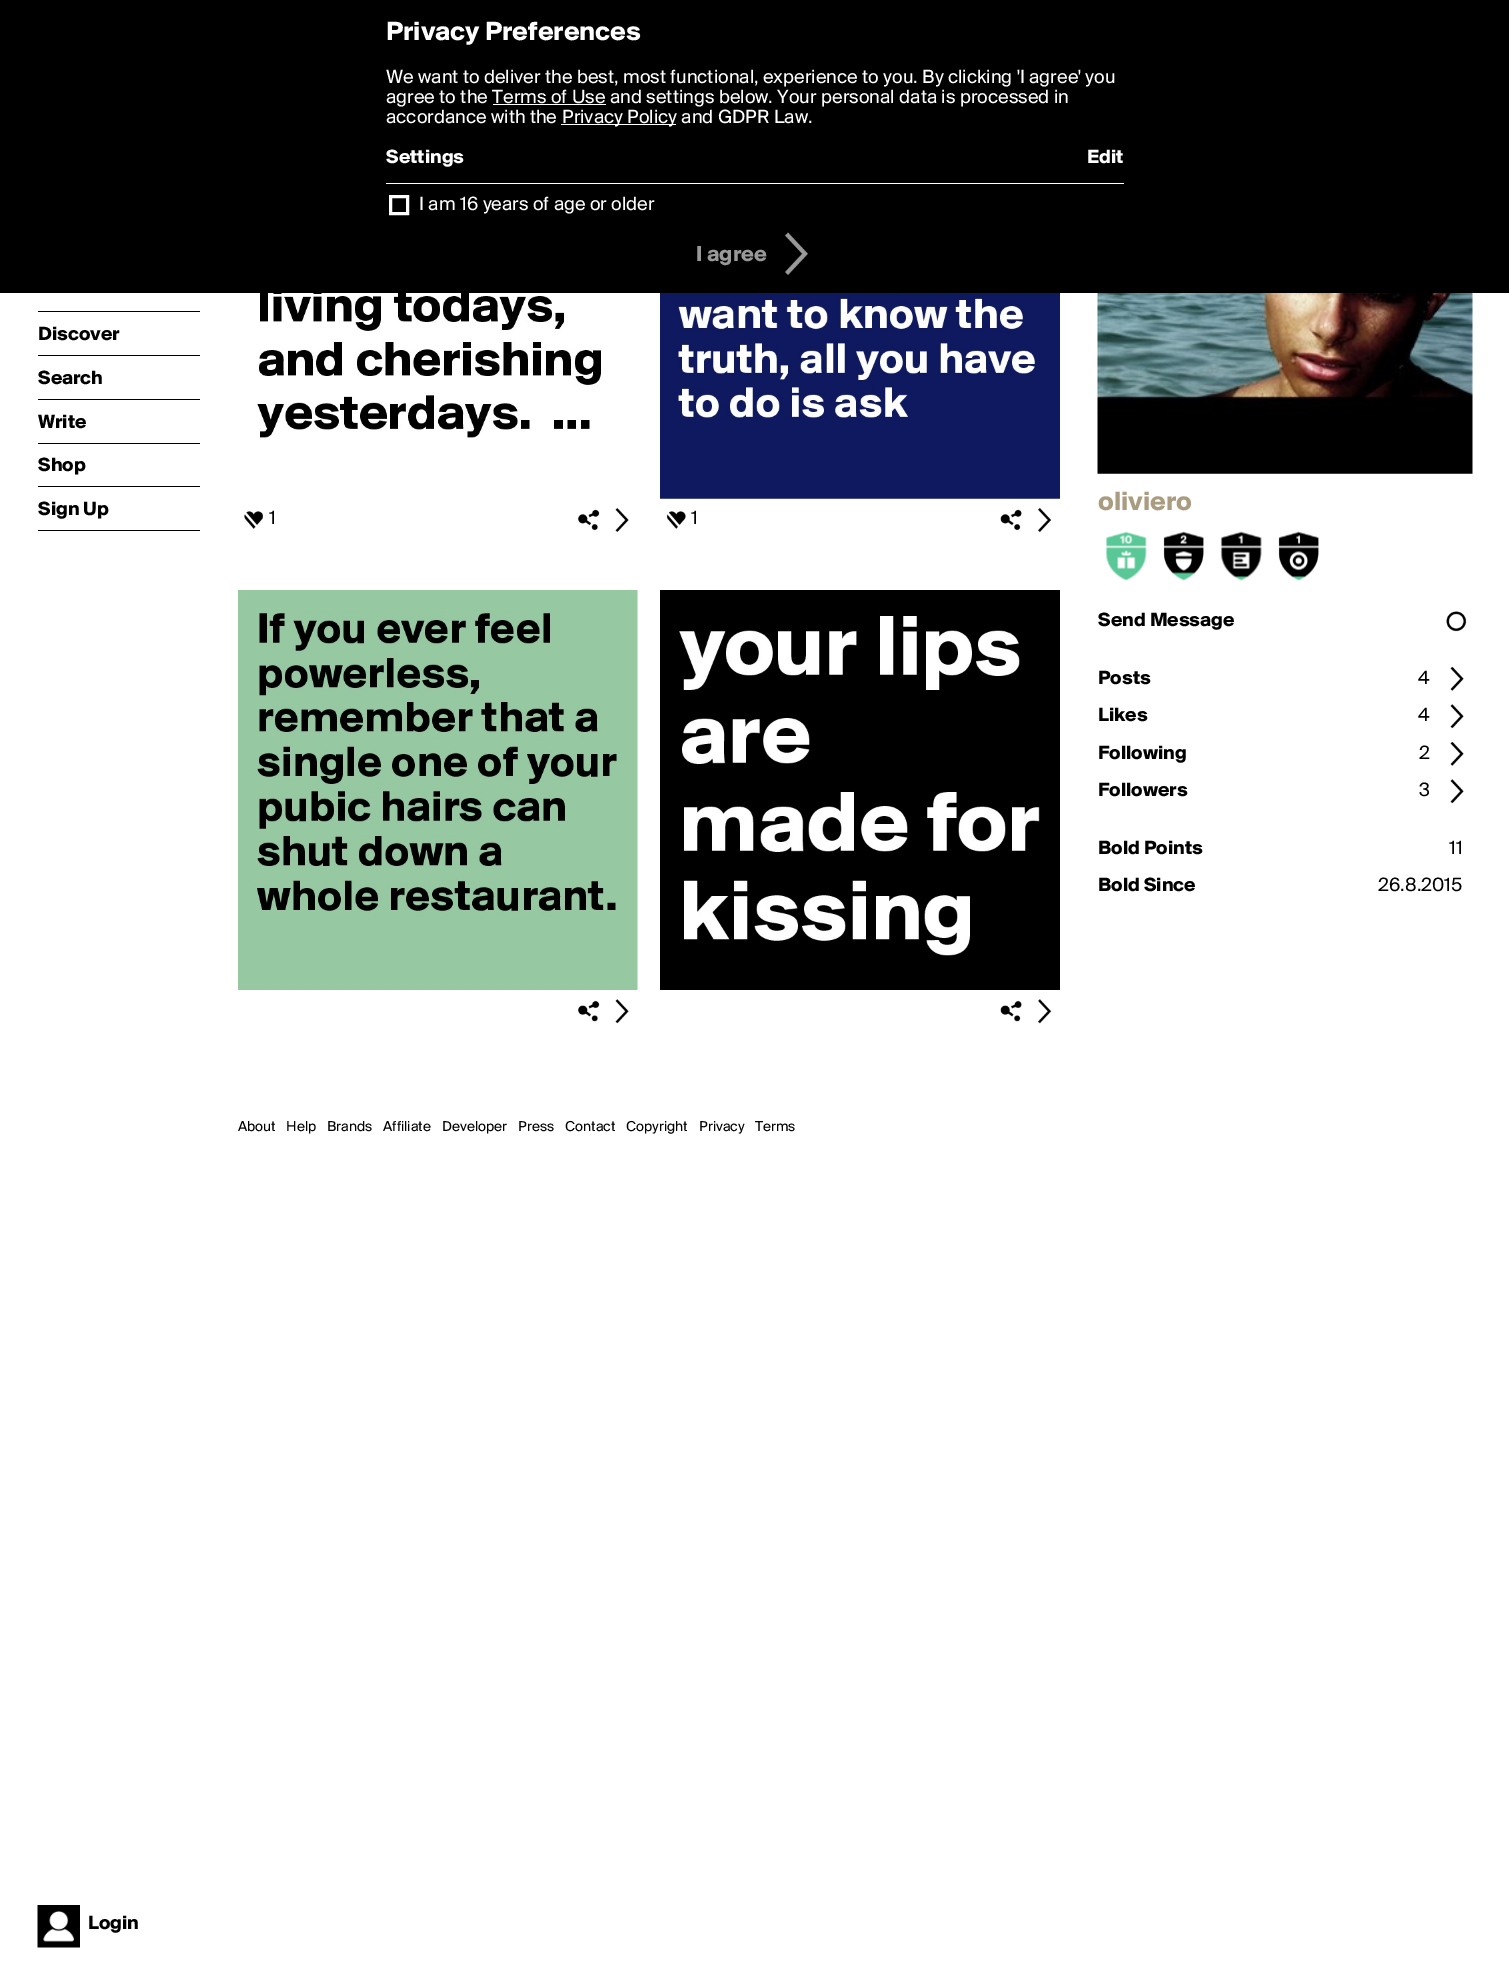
%!PS-Adobe-3.0
%%BoundingBox: 0 0 1509 1984
%%LanguageLevel: 3
%%Pages: 1
%%EndComments
%%BeginProlog
/setink { 3 { 255 div 3 1 roll } repeat setrgbcolor } def
/usefont { [ exch dup neg 0 0 3 -1 roll 0 0 ] selectfont } def
/drawtext { setink usefont moveto show } def
/fillbox { setink rectfill } def
/drawimage { 5 dict begin { /h /w /y /x /name } { exch def } forall
  gsave x y translate w h scale
  w h 8 [w 0 0 h 0 0] name (r) file false 3 colorimage grestore end } def
%%EndProlog
%%BeginSetup
<< /PageSize [1509 1984] >> setpagedevice
%%EndSetup
%%Page: 1 1
0 1984 translate 1 -1 scale
4 setmiterlimit
0 0 1509 1984 255 255 255 fillbox
0 0 1509 293 0 0 0 fillbox
(Privacy Preferences) 386 40 /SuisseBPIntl-Bold 27.5 255 255 255 drawtext
(We want to deliver the best, most functional, experience to you. By clicking 'I agree' you) 386 83 /SuisseBPIntl-Regular 20 255 255 255 drawtext
(agree to the Terms of Use and settings below. Your personal data is processed in) 386 103 /SuisseBPIntl-Regular 20 255 255 255 drawtext
493 104 113 1 255 255 255 fillbox
(accordance with the) 386 123 /SuisseBPIntl-Regular 20 255 255 255 drawtext
561 124 115 1 255 255 255 fillbox
(Privacy Policy and GDPR Law.) 562 123 /SuisseBPIntl-Regular 20 255 255 255 drawtext
(Settings) 386 163 /SuisseBPIntl-Bold 20 255 255 255 drawtext
(Edit) 1087 163 /SuisseBPIntl-Bold 20 255 255 255 drawtext
386 183 738 1 255 255 255 fillbox
3 setlinewidth
390.5 196.5 17 17 rectstroke
(I am 16 years of age or older) 419 210 /SuisseBPIntl-Regular 20 255 255 255 drawtext
(I agree) 696 261 /SuisseBPIntl-Bold 22.5 153 153 153 drawtext
(assets/img1.rgb) 785 232 23 43 drawimage
(About) 238 1131 /SuisseBPIntl-Regular 15 0 0 0 drawtext
237 1129 1 2 255 255 255 fillbox
38 311 162 1 0 0 0 fillbox
38 355 162 1 0 0 0 fillbox
(Discover) 38 340 /SuisseBPIntl-Bold 20 0 0 0 drawtext
38 399 162 1 0 0 0 fillbox
(Search) 38 384 /SuisseBPIntl-Bold 20 0 0 0 drawtext
38 443 162 1 0 0 0 fillbox
(Write) 38 428 /SuisseBPIntl-Bold 20 0 0 0 drawtext
38 486 162 1 0 0 0 fillbox
(Shop) 38 471 /SuisseBPIntl-Bold 20 0 0 0 drawtext
38 530 162 1 0 0 0 fillbox
(Sign Up) 38 515 /SuisseBPIntl-Bold 20 0 0 0 drawtext
(assets/img2.rgb) 37 1905 43 43 drawimage
(Login) 88 1929 /SuisseBPIntl-Bold 20 0 0 0 drawtext
(assets/img3.rgb) 254 293 347 145 drawimage
(assets/img4.rgb) 244 511 19 18 drawimage
(1) 269 524 /SuisseBPIntl-Regular 20 0 0 0 drawtext
(assets/img5.rgb) 578 509 22 22 drawimage
(assets/img6.rgb) 615 507 14 26 drawimage
(assets/img7.rgb) 660 293 400 206 drawimage
(assets/img8.rgb) 666 511 20 18 drawimage
(1) 691 524 /SuisseBPIntl-Regular 20 0 0 0 drawtext
(assets/img9.rgb) 1000 509 22 22 drawimage
(assets/img10.rgb) 1038 507 14 26 drawimage
(assets/img11.rgb) 238 590 400 400 drawimage
(assets/img12.rgb) 578 1000 22 22 drawimage
(assets/img13.rgb) 615 999 14 25 drawimage
(assets/img14.rgb) 660 590 400 400 drawimage
(assets/img15.rgb) 1000 1000 22 22 drawimage
(assets/img16.rgb) 1037 999 15 25 drawimage
(assets/img17.rgb) 1097 293 376 181 drawimage
(oliviero) 1098 510 /SuisseBPIntl-Bold 27.5 170 156 129 drawtext
(assets/img18.rgb) 1105 531 42 50 drawimage
(assets/img19.rgb) 1117 550 19 19 drawimage
(assets/img20.rgb) 1163 531 41 50 drawimage
(assets/img21.rgb) 1175 551 17 20 drawimage
(assets/img22.rgb) 1220 531 42 50 drawimage
(assets/img23.rgb) 1232 551 18 19 drawimage
(assets/img24.rgb) 1278 531 41 50 drawimage
(assets/img25.rgb) 1289 551 19 20 drawimage
(Send Message) 1098 626 /SuisseBPIntl-Bold 20 0 0 0 drawtext
(assets/img26.rgb) 1446 611 21 21 drawimage
(Posts) 1098 684 /SuisseBPIntl-Bold 20 0 0 0 drawtext
(4) 1418 684 /SuisseBPIntl-Regular 20 0 0 0 drawtext
(assets/img27.rgb) 1450 666 14 25 drawimage
(Likes) 1098 721 /SuisseBPIntl-Bold 20 0 0 0 drawtext
(4) 1418 721 /SuisseBPIntl-Regular 20 0 0 0 drawtext
(assets/img13.rgb) 1450 704 14 25 drawimage
(Following) 1098 759 /SuisseBPIntl-Bold 20 0 0 0 drawtext
(2) 1419 759 /SuisseBPIntl-Regular 20 0 0 0 drawtext
(assets/img27.rgb) 1450 741 14 25 drawimage
(Followers) 1098 796 /SuisseBPIntl-Bold 20 0 0 0 drawtext
(3) 1419 796 /SuisseBPIntl-Regular 20 0 0 0 drawtext
(assets/img13.rgb) 1450 779 14 25 drawimage
(Bold Points) 1098 854 /SuisseBPIntl-Bold 20 0 0 0 drawtext
(11) 1449 854 /SuisseBPIntl-Regular 20 0 0 0 drawtext
(Bold Since) 1098 891 /SuisseBPIntl-Bold 20 0 0 0 drawtext
(26.8.2015) 1378 891 /SuisseBPIntl-Regular 20 0 0 0 drawtext
(Help) 286 1131 /SuisseBPIntl-Regular 15 0 0 0 drawtext
(Brands) 327 1131 /SuisseBPIntl-Regular 15 0 0 0 drawtext
(Affiliate) 383 1131 /SuisseBPIntl-Regular 15 0 0 0 drawtext
(Developer) 442 1131 /SuisseBPIntl-Regular 15 0 0 0 drawtext
(Press) 518 1131 /SuisseBPIntl-Regular 15 0 0 0 drawtext
(Contact) 565 1131 /SuisseBPIntl-Regular 15 0 0 0 drawtext
(Copyright) 626 1131 /SuisseBPIntl-Regular 15 0 0 0 drawtext
(Privacy) 699 1131 /SuisseBPIntl-Regular 15 0 0 0 drawtext
(Terms) 755 1131 /SuisseBPIntl-Regular 15 0 0 0 drawtext
showpage
%%EOF
